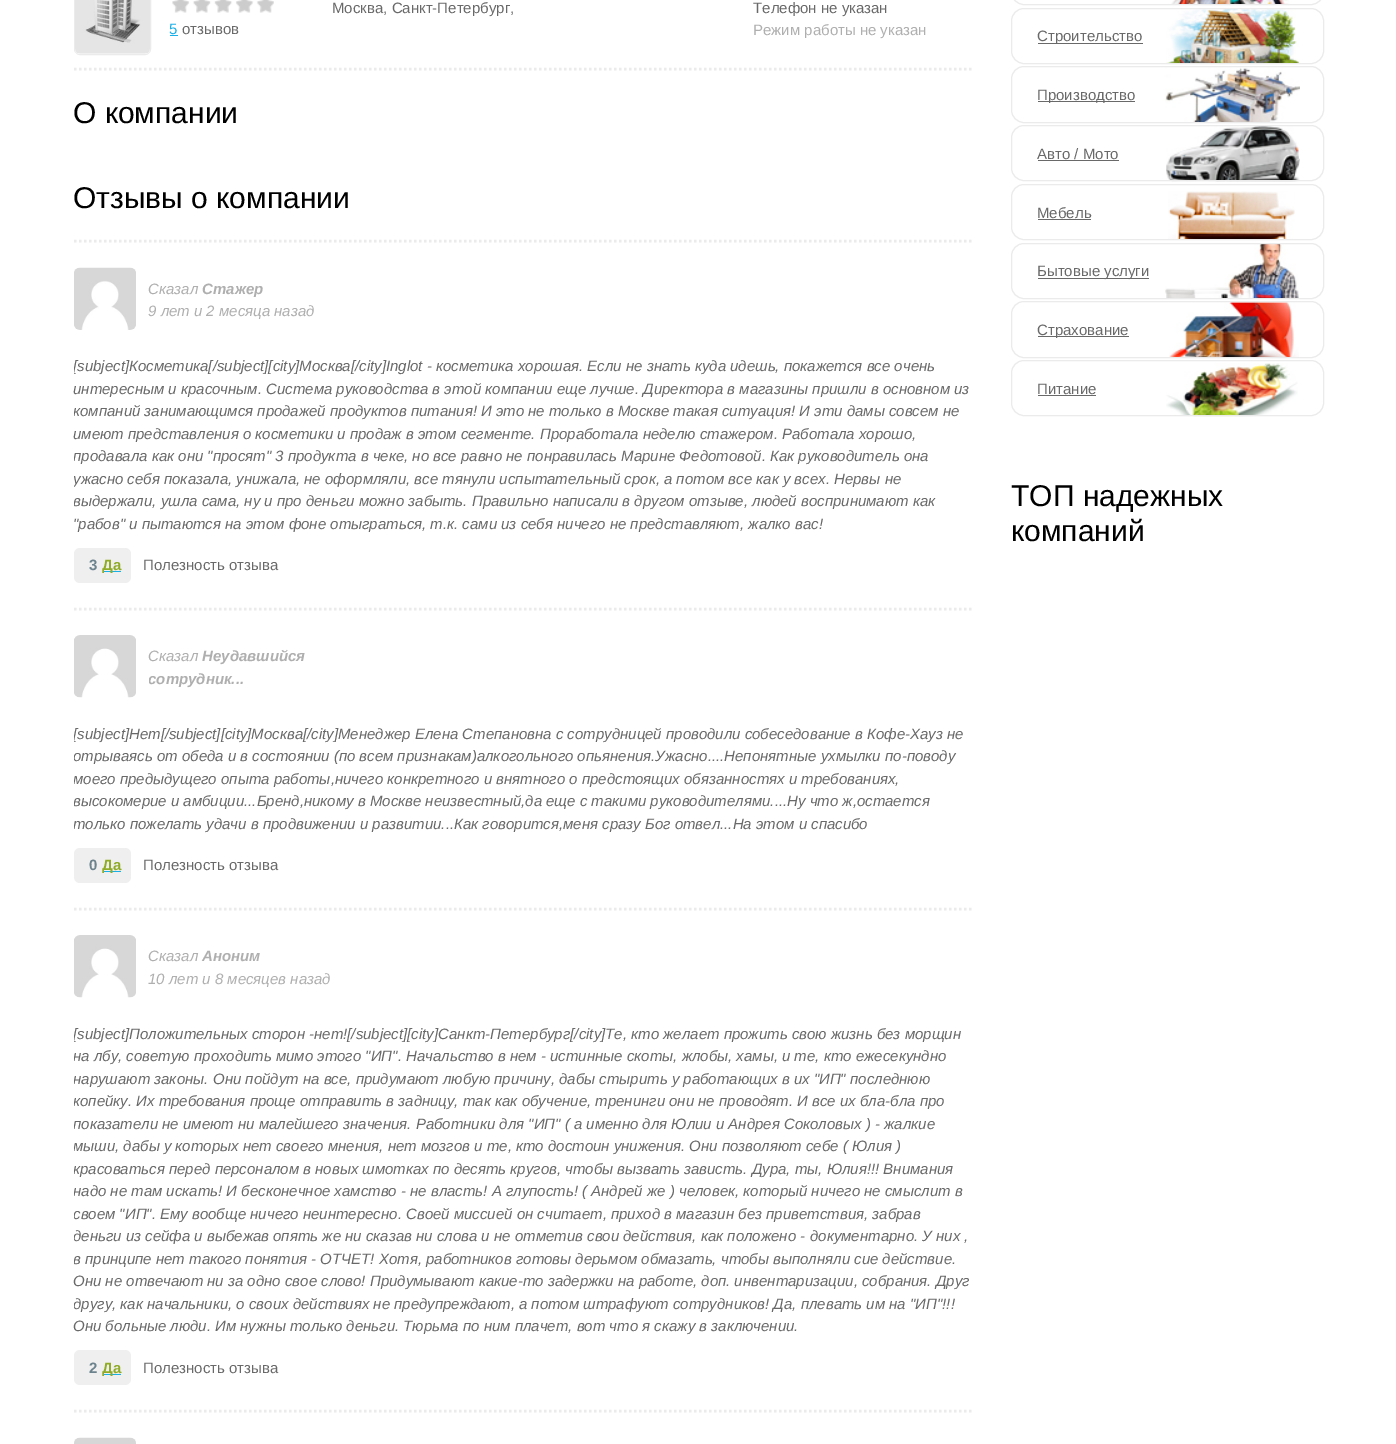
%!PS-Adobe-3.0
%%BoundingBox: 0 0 1396 1444
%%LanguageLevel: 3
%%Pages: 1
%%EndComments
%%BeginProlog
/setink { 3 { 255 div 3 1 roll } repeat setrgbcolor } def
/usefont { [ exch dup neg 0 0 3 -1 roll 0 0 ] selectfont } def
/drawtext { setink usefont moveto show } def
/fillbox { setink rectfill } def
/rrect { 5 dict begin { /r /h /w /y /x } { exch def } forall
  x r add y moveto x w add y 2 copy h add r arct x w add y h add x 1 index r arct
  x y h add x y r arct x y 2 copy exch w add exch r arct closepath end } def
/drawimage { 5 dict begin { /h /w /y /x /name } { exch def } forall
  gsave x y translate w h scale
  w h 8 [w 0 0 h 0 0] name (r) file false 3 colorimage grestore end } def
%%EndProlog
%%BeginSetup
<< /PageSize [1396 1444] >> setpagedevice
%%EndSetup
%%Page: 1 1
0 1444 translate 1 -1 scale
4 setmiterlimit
0 0 1396 1444 255 255 255 fillbox
235 235 235 setink
2.5 setlinewidth
[2.5 2.5] 0 setdash
74 69 moveto 974 69 lineto stroke
1 setlinewidth
[] 0 setdash
74.5 -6.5 76 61 5.5 rrect stroke
(assets/img1.rgb) 75 0 75 54 drawimage
(assets/img2.rgb) 172 0 102 13 drawimage
(5) 169 34 /LiberationSans-Regular 15 25 176 232 drawtext
170 35 8 1 25 176 232 fillbox
(отзывов) 182 34 /LiberationSans-Regular 15 105 105 105 drawtext
(Москва, Санкт-Петербург,) 332 13 /LiberationSans-Regular 15 105 105 105 drawtext
(Телефон не указан) 753 13 /LiberationSans-Regular 15 105 105 105 drawtext
(Режим работы не указан) 753 35 /LiberationSans-Regular 15 175 175 175 drawtext
(О компании) 73 123 /LiberationSans-Regular 30 0 0 0 drawtext
235 235 235 setink
2.5 setlinewidth
[2.5 2.5] 0 setdash
74 241 moveto 974 241 lineto stroke
(Отзывы о компании) 73 208 /LiberationSans-Regular 30 0 0 0 drawtext
235 235 235 setink
74 609 moveto 974 609 lineto stroke
(assets/img3.rgb) 74 267 62 63 drawimage
(Сказал) 148 294 /LiberationSans-Italic 15 175 175 175 drawtext
(Стажер) 202 294 /LiberationSans-BoldItalic 15 175 175 175 drawtext
(9 лет и 2 месяца назад) 148 316 /LiberationSans-Italic 15 175 175 175 drawtext
gsave
74 268 900 340 rectclip
([subject]Косметика[/subject][city]Москва[/city]Inglot - косметика хорошая. Если не знать куда идешь, покажется все очень) 73 371 /LiberationSans-Italic 15 105 105 105 drawtext
grestore
(интересным и красочным. Система руководства в этой компании еще лучше. Директора в магазины пришли в основном из) 73 394 /LiberationSans-Italic 15 105 105 105 drawtext
gsave
74 268 900 340 rectclip
(компаний занимающимся продажей продуктов питания! И это не только в Москве такая ситуация! И эти дамы совсем не) 73 416 /LiberationSans-Italic 15 105 105 105 drawtext
grestore
(имеют представления о косметики и продаж в этом сегменте. Проработала неделю стажером. Работала хорошо,) 73 439 /LiberationSans-Italic 15 105 105 105 drawtext
gsave
74 268 900 340 rectclip
(продавала как они "просят" 3 продукта в чеке, но все равно не понравилась Марине Федотовой. Как руководитель она) 73 461 /LiberationSans-Italic 15 105 105 105 drawtext
(ужасно себя показала, унижала, не оформляли, все тянули испытательный срок, а потом все как у всех. Нервы не) 73 484 /LiberationSans-Italic 15 105 105 105 drawtext
(выдержали, ушла сама, ну и про деньги можно забыть. Правильно написали в другом отзыве, людей воспринимают как) 73 506 /LiberationSans-Italic 15 105 105 105 drawtext
grestore
("рабов" и пытаются на этом фоне отыграться, т.к. сами из себя ничего не представляют, жалко вас!) 73 529 /LiberationSans-Italic 15 105 105 105 drawtext
239 239 239 setink
74 548 57 35 6 rrect fill
(3) 89 570 /LiberationSans-Bold 15 108 131 142 drawtext
103 571 18 1 25 176 232 fillbox
(Да) 102 570 /LiberationSans-Bold 15 144 172 38 drawtext
(Полезность отзыва) 143 570 /LiberationSans-Regular 15 105 105 105 drawtext
235 235 235 setink
74 909 moveto 974 909 lineto stroke
(assets/img4.rgb) 74 635 62 63 drawimage
(Сказал) 148 661 /LiberationSans-Italic 15 175 175 175 drawtext
(Неудавшийся) 202 661 /LiberationSans-BoldItalic 15 175 175 175 drawtext
gsave
149 645 250 53 rectclip
(сотрудник...) 148 684 /LiberationSans-BoldItalic 15 175 175 175 drawtext
grestore
gsave
74 635 900 273 rectclip
([subject]Нет[/subject][city]Москва[/city]Менеджер Елена Степановна с сотрудницей проводили собеседование в Кофе-Хауз не) 73 739 /LiberationSans-Italic 15 105 105 105 drawtext
(отрываясь от обеда и в состоянии \(по всем признакам\)алкогольного опьянения.Ужасно....Непонятные ухмылки по-поводу) 73 761 /LiberationSans-Italic 15 105 105 105 drawtext
(моего предыдущего опыта работы,ничего конкретного и внятного о предстоящих обязанностях и требованиях,) 73 784 /LiberationSans-Italic 15 105 105 105 drawtext
(высокомерие и амбиции...Бренд,никому в Москве неизвестный,да еще с такими руководителями....Ну что ж,остается) 73 806 /LiberationSans-Italic 15 105 105 105 drawtext
(только пожелать удачи в продвижении и развитии...Как говорится,меня сразу Бог отвел...На этом и спасибо) 73 829 /LiberationSans-Italic 15 105 105 105 drawtext
grestore
239 239 239 setink
74 848 57 35 6 rrect fill
(0) 89 870 /LiberationSans-Bold 15 108 131 142 drawtext
103 871 18 1 25 176 232 fillbox
(Да) 102 870 /LiberationSans-Bold 15 144 172 38 drawtext
(Полезность отзыва) 143 870 /LiberationSans-Regular 15 105 105 105 drawtext
235 235 235 setink
74 1411 moveto 974 1411 lineto stroke
(assets/img4.rgb) 74 935 62 63 drawimage
(Сказал) 148 961 /LiberationSans-Italic 15 175 175 175 drawtext
(Аноним) 202 961 /LiberationSans-BoldItalic 15 175 175 175 drawtext
(10 лет и 8 месяцев назад) 148 984 /LiberationSans-Italic 15 175 175 175 drawtext
gsave
74 935 900 475 rectclip
([subject]Положительных сторон -нет![/subject][city]Санкт-Петербург[/city]Те, кто желает прожить свою жизнь без морщин) 73 1039 /LiberationSans-Italic 15 105 105 105 drawtext
(на лбу, советую проходить мимо этого "ИП". Начальство в нем - истинные скоты, жлобы, хамы, и те, кто ежесекундно) 73 1061 /LiberationSans-Italic 15 105 105 105 drawtext
(нарушают законы.) 73 1084 /LiberationSans-Italic 15 105 105 105 drawtext
grestore
(Они пойдут на все, придумают любую причину, дабы стырить у работающих в их "ИП" последнюю) 213 1084 /LiberationSans-Italic 15 105 105 105 drawtext
gsave
74 935 900 475 rectclip
(копейку. Их требования проще отправить в задницу, так как обучение, тренинги они не проводят. И все их бла-бла про) 73 1106 /LiberationSans-Italic 15 105 105 105 drawtext
(показатели не имеют ни малейшего значения. Работники для "ИП" \( а именно для Юлии и Андрея Соколовых \)) 73 1129 /LiberationSans-Italic 15 105 105 105 drawtext
grestore
(- жалкие) 875 1129 /LiberationSans-Italic 15 105 105 105 drawtext
gsave
74 935 900 475 rectclip
(мыши, дабы у которых нет своего мнения, нет мозгов и те, кто достоин унижения. Они позволяют себе \( Юлия \)) 73 1151 /LiberationSans-Italic 15 105 105 105 drawtext
(красоваться перед персоналом в новых шмотках по десять кругов, чтобы вызвать зависть. Дура, ты, Юлия!!! Внимания) 73 1174 /LiberationSans-Italic 15 105 105 105 drawtext
(надо не там искать! И бесконечное хамство - не власть! А глупость! \( Андрей же \) человек, который ничего не смыслит в) 73 1196 /LiberationSans-Italic 15 105 105 105 drawtext
(своем "ИП". Ему вообще ничего неинтересно. Своей миссией он считает, приход в магазин без приветствия, забрав) 73 1219 /LiberationSans-Italic 15 105 105 105 drawtext
(деньги из сейфа и выбежав опять же ни сказав ни слова и не отметив свои действия, как положено -) 73 1241 /LiberationSans-Italic 15 105 105 105 drawtext
grestore
(документарно. У них ,) 810 1241 /LiberationSans-Italic 15 105 105 105 drawtext
gsave
74 935 900 475 rectclip
(в принципе нет такого понятия - ОТЧЕТ! Хотя, работников готовы дерьмом обмазать, чтобы выполняли сие действие.) 73 1264 /LiberationSans-Italic 15 105 105 105 drawtext
grestore
(Они не отвечают ни за одно свое слово! Придумывают какие-то задержки на работе, доп. инвентаризации, собрания. Друг) 73 1286 /LiberationSans-Italic 15 105 105 105 drawtext
gsave
74 935 900 475 rectclip
(другу, как начальники, о своих действиях не предупреждают, а потом штрафуют сотрудников! Да, плевать им на "ИП"!!!) 73 1309 /LiberationSans-Italic 15 105 105 105 drawtext
grestore
(Они больные люди. Им нужны только деньги. Тюрьма по ним плачет, вот что я скажу в заключении.) 73 1331 /LiberationSans-Italic 15 105 105 105 drawtext
239 239 239 setink
74 1350 57 35 6 rrect fill
(2) 89 1373 /LiberationSans-Bold 15 108 131 142 drawtext
103 1374 18 1 25 176 232 fillbox
(Да) 102 1373 /LiberationSans-Bold 15 144 172 38 drawtext
(Полезность отзыва) 143 1373 /LiberationSans-Regular 15 105 105 105 drawtext
(assets/img5.rgb) 74 1437 62 7 drawimage
(assets/img6.rgb) 1171 0 118 4 drawimage
235 235 235 setink
1 setlinewidth
[] 0 setdash
1011.5 -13.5 312 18 12.5 rrect stroke
(assets/img7.rgb) 1166 9 134 54 drawimage
1011.5 8.5 312 55 12.5 rrect stroke
1038 43 105 1 105 105 105 fillbox
(Строительство) 1037 41 /LiberationSans-Regular 15 105 105 105 drawtext
(assets/img8.rgb) 1165 67 135 55 drawimage
235 235 235 setink
1011.5 66.5 312 56 12.5 rrect stroke
1038 101 97 1 105 105 105 fillbox
(Производство) 1037 100 /LiberationSans-Regular 15 105 105 105 drawtext
(assets/img9.rgb) 1166 126 134 56 drawimage
235 235 235 setink
1011.5 125.5 312 55 12.5 rrect stroke
(Авто / Мото) 1037 159 /LiberationSans-Regular 15 105 105 105 drawtext
1038 160 81 1 105 105 105 fillbox
(assets/img10.rgb) 1168 191 127 48 drawimage
235 235 235 setink
1011.5 184.5 312 55 12.5 rrect stroke
(Мебель) 1037 218 /LiberationSans-Regular 15 105 105 105 drawtext
1038 219 53 1 105 105 105 fillbox
(assets/img11.rgb) 1165 244 134 54 drawimage
235 235 235 setink
1011.5 243.5 312 55 12.5 rrect stroke
1038 278 111 1 105 105 105 fillbox
(Бытовые услуги) 1037 276 /LiberationSans-Regular 15 105 105 105 drawtext
(assets/img12.rgb) 1169 302 130 55 drawimage
235 235 235 setink
1011.5 301.5 312 56 12.5 rrect stroke
1038 336 91 1 105 105 105 fillbox
(Страхование) 1037 335 /LiberationSans-Regular 15 105 105 105 drawtext
(assets/img13.rgb) 1166 363 132 54 drawimage
235 235 235 setink
1011.5 360.5 312 55 12.5 rrect stroke
(Питание) 1037 394 /LiberationSans-Regular 15 105 105 105 drawtext
1038 395 58 1 105 105 105 fillbox
(ТОП надежных) 1011 506 /LiberationSans-Regular 30 0 0 0 drawtext
(компаний) 1011 541 /LiberationSans-Regular 30 0 0 0 drawtext
showpage
%%EOF
